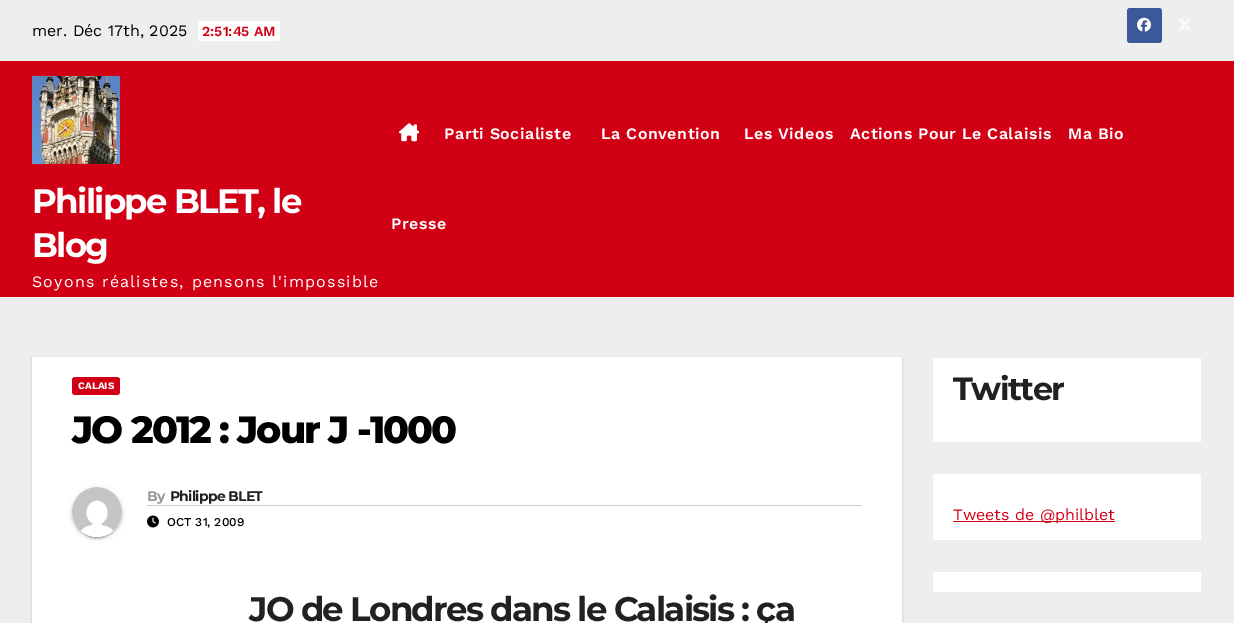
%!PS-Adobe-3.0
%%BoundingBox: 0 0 1234 623
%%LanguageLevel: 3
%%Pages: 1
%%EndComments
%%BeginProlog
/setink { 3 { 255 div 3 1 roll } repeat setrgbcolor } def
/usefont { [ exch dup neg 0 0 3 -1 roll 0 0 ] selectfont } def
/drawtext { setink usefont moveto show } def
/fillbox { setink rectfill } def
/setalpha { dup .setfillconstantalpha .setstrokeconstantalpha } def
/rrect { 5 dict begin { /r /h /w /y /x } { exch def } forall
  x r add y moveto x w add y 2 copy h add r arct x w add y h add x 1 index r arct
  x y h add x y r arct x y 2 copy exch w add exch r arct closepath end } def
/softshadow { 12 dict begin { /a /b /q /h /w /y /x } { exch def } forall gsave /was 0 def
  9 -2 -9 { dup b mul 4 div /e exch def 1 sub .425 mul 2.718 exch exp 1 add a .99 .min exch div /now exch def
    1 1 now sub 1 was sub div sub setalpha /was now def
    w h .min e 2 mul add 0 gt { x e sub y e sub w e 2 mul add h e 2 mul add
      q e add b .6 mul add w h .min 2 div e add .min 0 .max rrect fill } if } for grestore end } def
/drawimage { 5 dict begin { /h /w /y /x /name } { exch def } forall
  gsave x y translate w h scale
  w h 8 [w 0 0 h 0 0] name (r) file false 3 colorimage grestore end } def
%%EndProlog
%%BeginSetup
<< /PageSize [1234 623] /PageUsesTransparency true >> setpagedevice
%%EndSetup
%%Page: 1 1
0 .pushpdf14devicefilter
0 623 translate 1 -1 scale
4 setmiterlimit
0 0 1234 623 238 238 238 fillbox
(mer. Déc 17th, 2025) 32 36 /WorkSans-Regular 16 0 0 0 drawtext
255 255 255 setink
198 21 82 20 2 rrect fill
(2:51:45 AM) 202 36 /WorkSans-SemiBold 14 209 0 20 drawtext
59 89 152 setink
1127 8 35 35 3 rrect fill
(assets/img1.rgb) 1137 17 14 15 drawimage
(assets/img2.rgb) 1179 19 12 12 drawimage
0 61 1234 236 209 0 20 fillbox
(assets/img3.rgb) 32 76 88 88 drawimage
/Montserrat-Bold 34 usefont
255 255 255 setink
32 213 moveto -1.7 0 (Philippe BLET, le) ashow
32 257 moveto -1.7 0 (Blog) ashow
/WorkSans-Regular 16 usefont
32 287 moveto 1.2 0 (Soyons réalistes, pensons l'impossible) ashow
(assets/img4.rgb) 399 123 21 19 drawimage
/WorkSans-SemiBold 16 usefont
444 139 moveto 0.5 0 (Parti Socialiste) ashow
601 139 moveto 0.5 0 (La Convention) ashow
744 139 moveto 0.5 0 (Les Videos) ashow
850 139 moveto 0.5 0 (Actions Pour Le Calaisis) ashow
1068 139 moveto 0.5 0 (Ma Bio) ashow
391 229 moveto 0.5 0 (Presse) ashow
0 0 0 setink
32 358 870 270 0 1.5 0.15 softshadow
32 357 870 266 255 255 255 fillbox
209 0 20 setink
72 377 48 18 3 rrect fill
(CALAIS) 78 389 /WorkSans-Bold 10 255 255 255 drawtext
/Montserrat-ExtraBold 38 usefont
0 0 0 setink
72 443 moveto -1.9 0 (JO 2012 : Jour J -1000) ashow
72 488 50 50 25 2.5 0.12 softshadow
74 492 46 46 23 0.5 0.2 softshadow
72 489 50 50 25 1 0.14 softshadow
(assets/img5.rgb) 72 487 50 50 drawimage
147 505 715 1 204 204 204 fillbox
/Montserrat-Bold 14 usefont
153 153 153 setink
147 501 moveto -0.75 0 (By) ashow
33 33 33 setink
170 501 moveto -0.75 0 (Philippe BLET) ashow
(assets/img6.rgb) 147 515 12 13 drawimage
(OCT 31, 2009) 167 526 /WorkSans-Medium 12 0 0 0 drawtext
/Montserrat-Bold 34 usefont
33 33 33 setink
249 621 moveto -1.7 0 (JO de Londres dans le Calaisis : ça) ashow
933 358 268 84 255 255 255 fillbox
/Montserrat-Bold 32 usefont
33 33 33 setink
953 400 moveto -1.5 0 (Twitter) ashow
933 474 268 66 255 255 255 fillbox
953 521 162 1 209 0 20 fillbox
(Tweets de @philblet) 953 520 /WorkSans-Regular 16 209 0 20 drawtext
933 572 268 20 255 255 255 fillbox
.poppdf14devicefilter showpage
%%EOF
